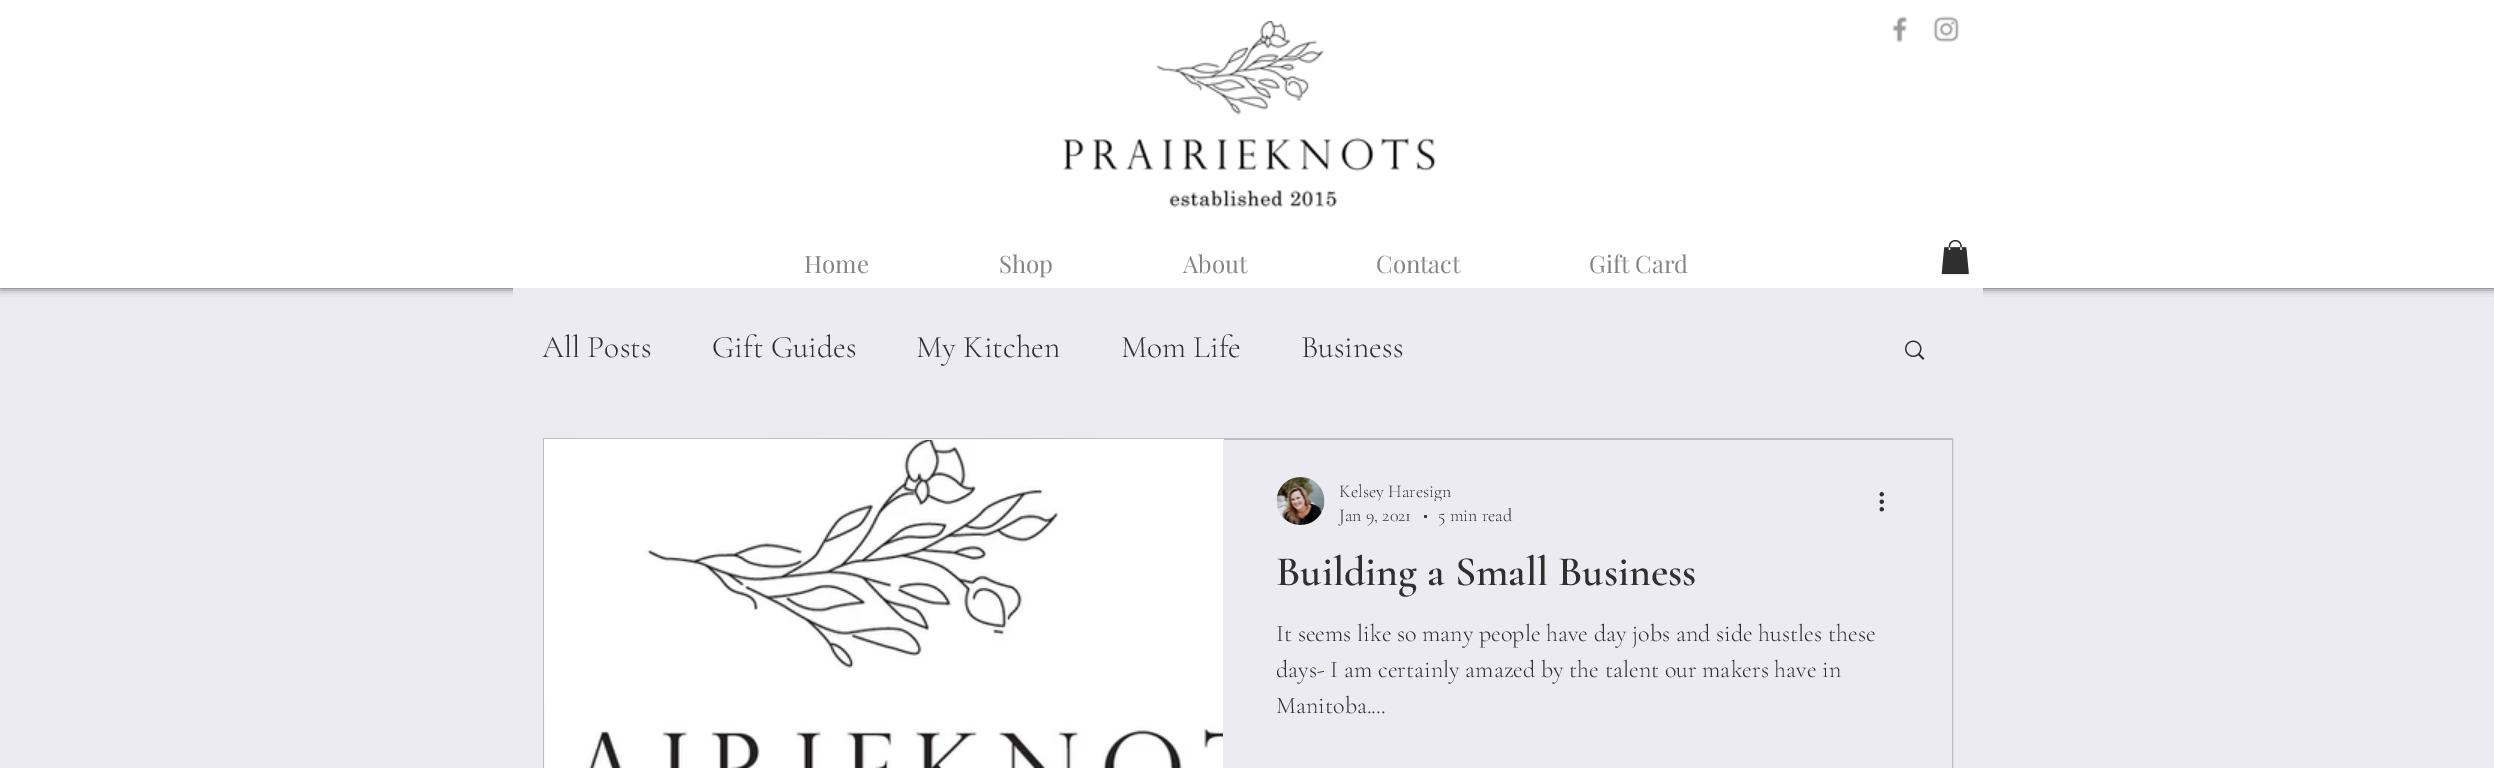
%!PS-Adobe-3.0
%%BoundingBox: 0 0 2494 768
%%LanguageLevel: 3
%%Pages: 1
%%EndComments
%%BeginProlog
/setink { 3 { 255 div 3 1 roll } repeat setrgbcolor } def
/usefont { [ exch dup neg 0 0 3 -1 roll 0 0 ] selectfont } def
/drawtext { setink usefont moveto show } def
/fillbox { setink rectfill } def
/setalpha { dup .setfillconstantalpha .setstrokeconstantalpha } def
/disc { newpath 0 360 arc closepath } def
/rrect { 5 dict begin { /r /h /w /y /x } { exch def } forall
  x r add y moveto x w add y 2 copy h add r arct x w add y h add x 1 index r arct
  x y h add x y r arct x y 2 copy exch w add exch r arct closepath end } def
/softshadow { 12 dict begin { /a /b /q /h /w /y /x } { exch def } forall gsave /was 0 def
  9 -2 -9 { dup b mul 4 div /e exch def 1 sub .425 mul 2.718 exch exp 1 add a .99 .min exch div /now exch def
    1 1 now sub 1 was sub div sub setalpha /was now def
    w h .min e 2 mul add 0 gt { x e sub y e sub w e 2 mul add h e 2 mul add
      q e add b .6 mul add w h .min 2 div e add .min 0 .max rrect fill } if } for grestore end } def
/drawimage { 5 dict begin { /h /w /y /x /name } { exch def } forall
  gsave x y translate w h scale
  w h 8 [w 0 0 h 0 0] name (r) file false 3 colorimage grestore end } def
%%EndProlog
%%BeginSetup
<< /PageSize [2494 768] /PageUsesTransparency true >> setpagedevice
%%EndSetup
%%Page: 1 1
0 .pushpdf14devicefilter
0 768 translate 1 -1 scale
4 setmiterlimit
0 0 2494 768 237 235 242 fillbox
0 0 0 setink
0 0 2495 288 0 4 0.7 softshadow
0 0 2494 288 255 255 255 fillbox
(assets/img1.rgb) 1063 21 373 187 drawimage
(assets/img2.rgb) 1892 16 15 27 drawimage
(assets/img3.rgb) 1933 16 27 27 drawimage
(Home) 804 273 /PlayfairDisplay-Regular 24 133 133 133 drawtext
(Shop) 999 273 /PlayfairDisplay-Regular 24 133 133 133 drawtext
(About) 1183 273 /PlayfairDisplay-Regular 24 133 133 133 drawtext
(Contact) 1376 273 /PlayfairDisplay-Regular 24 133 133 133 drawtext
(Gift Card) 1589 273 /PlayfairDisplay-Regular 24 133 133 133 drawtext
(assets/img4.rgb) 1941 240 28 35 drawimage
513 288 1470 9 237 235 242 fillbox
(All Posts) 542 357 /CormorantGaramond-Light 31.5 47 47 48 drawtext
(Gift Guides) 712 357 /CormorantGaramond-Light 31.5 47 47 48 drawtext
(My Kitchen) 916 357 /CormorantGaramond-Light 31.5 47 47 48 drawtext
(Mom Life) 1121 357 /CormorantGaramond-Light 31.5 47 47 48 drawtext
(Business) 1301 357 /CormorantGaramond-Light 31.5 47 47 48 drawtext
(assets/img5.rgb) 1905 340 20 20 drawimage
190 188 194 setink
2 setlinewidth
544 439 1408 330 rectstroke
(assets/img6.rgb) 544 439 680 329 drawimage
(assets/img7.rgb) 545 440 678 328 drawimage
1223 440 729 328 237 235 242 fillbox
(assets/img8.rgb) 1276 477 49 48 drawimage
gsave
1340 480 111 21 rectclip
(Kelsey Haresign) 1339 497 /CormorantGaramond-Light 18 47 47 48 drawtext
grestore
(Jan 9, 2021) 1339 521 /CormorantGaramond-Light 18 47 47 48 drawtext
1425.5 516.5 1.5 disc fill
(5 min read) 1438 521 /CormorantGaramond-Light 18 47 47 48 drawtext
(assets/img9.rgb) 1879 492 5 20 drawimage
(Building a Small Business) 1276 585 /CormorantGaramond-SemiBold 42 47 47 48 drawtext
(It seems like so many people have day jobs and side hustles these) 1276 641 /CormorantGaramond-Light 24 47 47 48 drawtext
gsave
1277 615 621 108 rectclip
(days- I am certainly amazed by the talent our makers have in) 1276 677 /CormorantGaramond-Light 24 47 47 48 drawtext
grestore
(Manitoba....) 1276 713 /CormorantGaramond-Light 24 47 47 48 drawtext
.poppdf14devicefilter showpage
%%EOF
